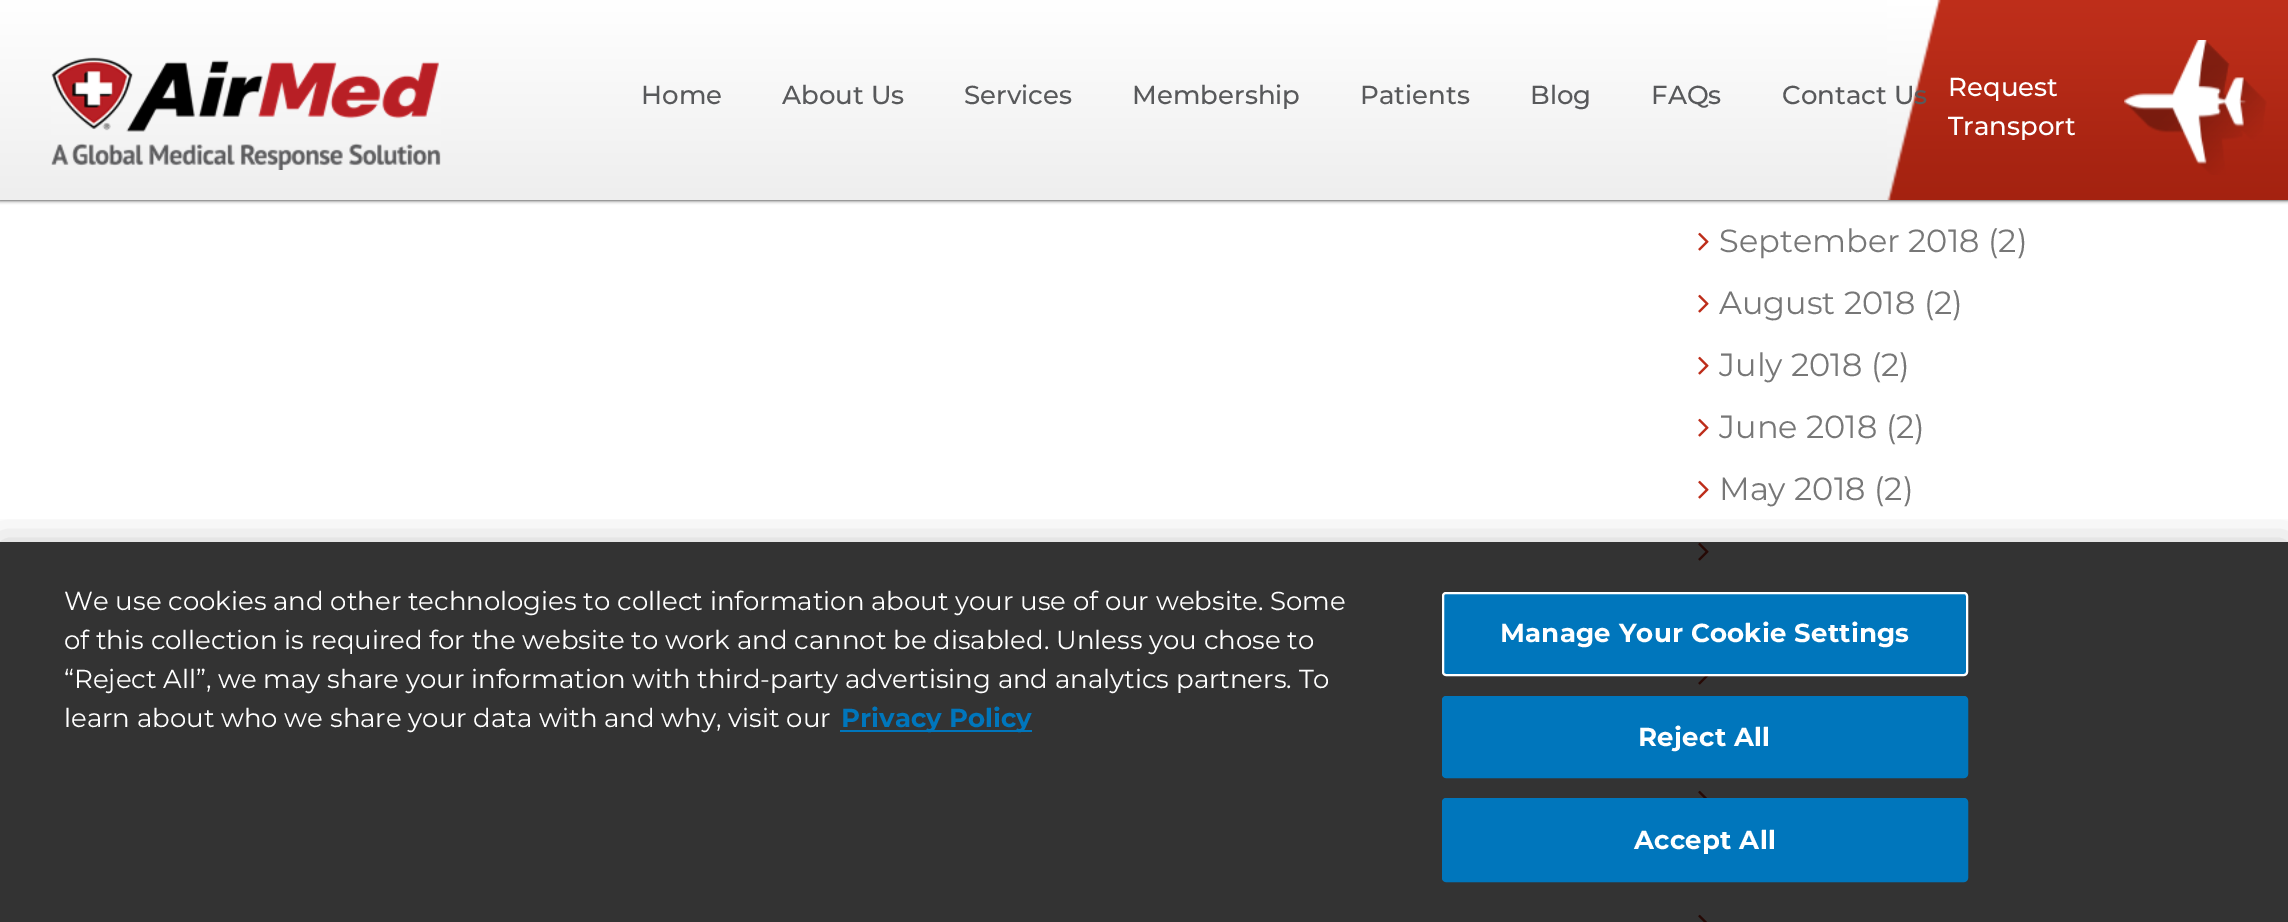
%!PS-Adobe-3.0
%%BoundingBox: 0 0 2288 922
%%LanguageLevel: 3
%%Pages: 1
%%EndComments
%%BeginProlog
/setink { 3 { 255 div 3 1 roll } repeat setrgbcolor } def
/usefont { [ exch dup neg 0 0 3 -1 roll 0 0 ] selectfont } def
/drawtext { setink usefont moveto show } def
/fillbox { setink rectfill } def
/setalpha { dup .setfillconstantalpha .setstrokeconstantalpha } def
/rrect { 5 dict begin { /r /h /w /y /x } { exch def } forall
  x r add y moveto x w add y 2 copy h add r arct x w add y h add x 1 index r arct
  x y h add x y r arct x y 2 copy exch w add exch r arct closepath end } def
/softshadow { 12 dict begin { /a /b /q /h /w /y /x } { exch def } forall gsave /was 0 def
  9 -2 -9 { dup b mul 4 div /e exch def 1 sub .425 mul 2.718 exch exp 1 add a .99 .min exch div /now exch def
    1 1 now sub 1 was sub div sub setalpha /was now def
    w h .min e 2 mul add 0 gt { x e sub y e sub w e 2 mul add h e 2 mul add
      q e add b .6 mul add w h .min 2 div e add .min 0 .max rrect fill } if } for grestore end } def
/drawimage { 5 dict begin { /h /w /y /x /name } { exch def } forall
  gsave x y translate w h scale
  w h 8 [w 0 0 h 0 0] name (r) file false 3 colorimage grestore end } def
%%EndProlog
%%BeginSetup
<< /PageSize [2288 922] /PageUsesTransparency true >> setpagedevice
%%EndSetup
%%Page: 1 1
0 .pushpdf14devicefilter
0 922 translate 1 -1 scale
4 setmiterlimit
0 0 2288 922 255 255 255 fillbox
0 0 0 setink
0 0 2288 200 0 2 1 softshadow
gsave 0 0 moveto 1941 0 lineto 1941 200 lineto 0 200 lineto closepath clip newpath
<< /ShadingType 2 /ColorSpace /DeviceRGB /Coords [1144 0 1144 200] /Extend [true true] /Function << /FunctionType 2 /Domain [0 1] /C0 [1 1 1] /C1 [0.933 0.933 0.933] /N 1 >> >> shfill grestore
(assets/img1.rgb) 51 57 390 113 drawimage
(Home) 641 104 /Montserrat-Medium 26 88 89 91 drawtext
(About Us) 782 104 /Montserrat-Medium 26 88 89 91 drawtext
(Services) 964 104 /Montserrat-Medium 26 88 89 91 drawtext
(Membership) 1132 104 /Montserrat-Medium 26 88 89 91 drawtext
(Patients) 1360 104 /Montserrat-Medium 26 88 89 91 drawtext
(Blog) 1530 104 /Montserrat-Medium 26 88 89 91 drawtext
(FAQs) 1651 104 /Montserrat-Medium 26 88 89 91 drawtext
(assets/img2.rgb) 1887 0 401 200 drawimage
(Contact Us) 1782 104 /Montserrat-Medium 26 88 89 91 drawtext
(Request) 1948 96 /Montserrat-Medium 26 255 255 255 drawtext
(Transport) 1948 135 /Montserrat-Medium 26 255 255 255 drawtext
(assets/img3.rgb) 2124 40 143 135 drawimage
(assets/img4.rgb) 1698 232 11 19 drawimage
(September 2018 \(2\)) 1719 252 /Montserrat-Regular 32 119 119 119 drawtext
(assets/img4.rgb) 1698 294 11 19 drawimage
(August 2018 \(2\)) 1719 314 /Montserrat-Regular 32 119 119 119 drawtext
(assets/img4.rgb) 1698 356 11 19 drawimage
(July 2018 \(2\)) 1719 376 /Montserrat-Regular 32 119 119 119 drawtext
(assets/img4.rgb) 1698 418 11 19 drawimage
(June 2018 \(2\)) 1719 438 /Montserrat-Regular 32 119 119 119 drawtext
(assets/img4.rgb) 1698 480 11 19 drawimage
(May 2018 \(2\)) 1719 500 /Montserrat-Regular 32 119 119 119 drawtext
(assets/img4.rgb) 1698 542 11 19 drawimage
(assets/img5.rgb) 1698 676 11 9 drawimage
(assets/img6.rgb) 1698 790 9 8 drawimage
(assets/img6.rgb) 1698 914 9 8 drawimage
gsave
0 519 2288 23 rectclip
0 0 0 setink
0 542 2288 380 0 18 0.2 softshadow
grestore
0.8 setalpha
0 542 2288 380 0 0 0 fillbox
1 setalpha
(We use cookies and other technologies to collect information about your use of our website. Some) 64 610 /Montserrat-Regular 26 255 255 255 drawtext
(of this collection is required for the website to work and cannot be disabled.) 64 649 /Montserrat-Regular 26 255 255 255 drawtext
(Unless you chose to) 1056 649 /Montserrat-Regular 26 255 255 255 drawtext
(“Reject All”, we may share your information with third-party advertising and analytics partners. To) 64 688 /Montserrat-Regular 26 255 255 255 drawtext
(learn about who we share your data with and why, visit our) 64 727 /Montserrat-Regular 26 255 255 255 drawtext
840 730 192 2 0 118 188 fillbox
(Privacy Policy) 841 727 /Montserrat-Bold 26 0 118 188 drawtext
1443 593 524 82 3 rrect gsave fill grestore
255 255 255 setink
2 setlinewidth
stroke
1500 642 moveto 0.25 0 (Manage Your Cookie Settings) ashow
0 118 188 setink
1443 697 524 80 3 rrect gsave fill grestore
stroke
255 255 255 setink
1638 746 moveto 0.25 0 (Reject All) ashow
0 118 188 setink
1443 799 524 82 3 rrect gsave fill grestore
stroke
255 255 255 setink
1634 849 moveto 0.25 0 (Accept All) ashow
.poppdf14devicefilter showpage
%%EOF
